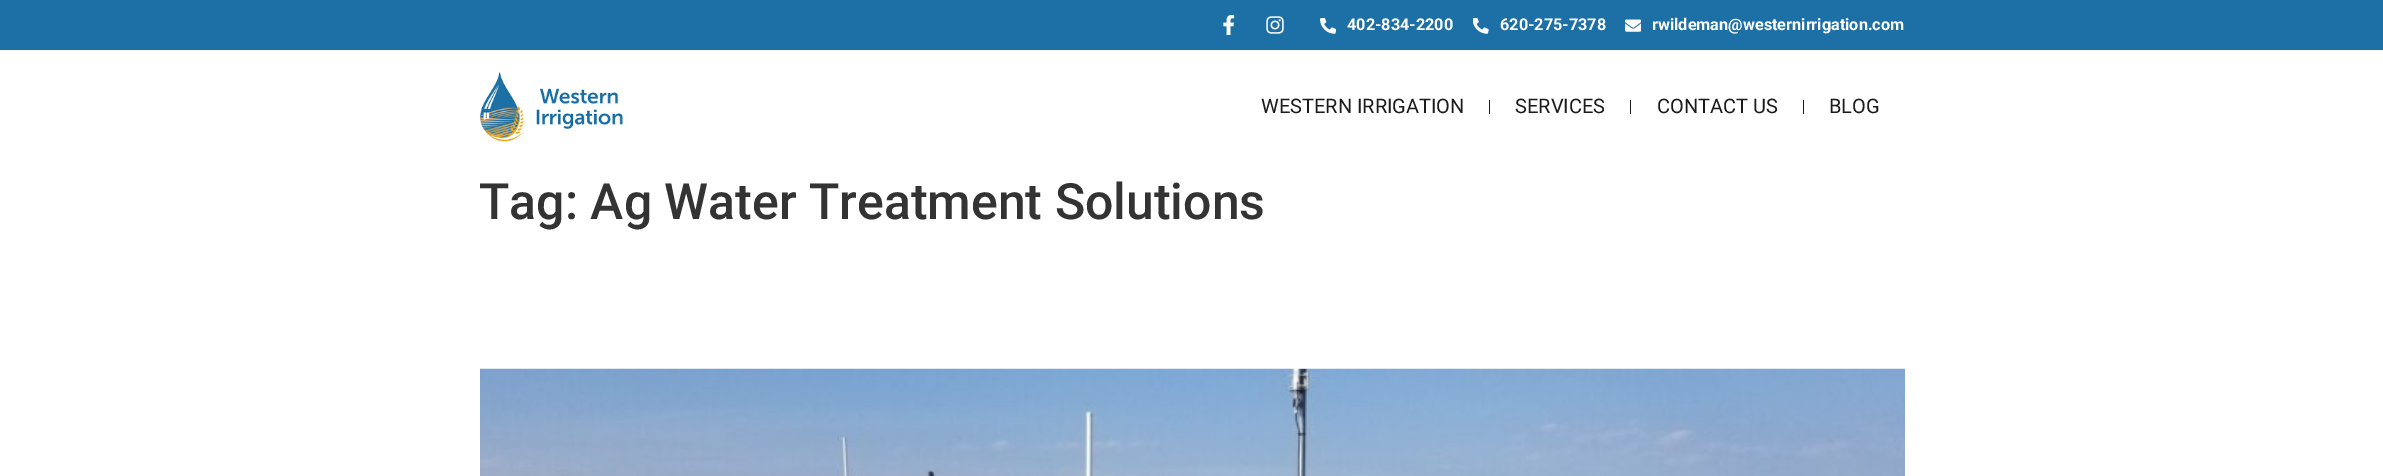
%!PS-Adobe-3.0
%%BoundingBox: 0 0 2383 476
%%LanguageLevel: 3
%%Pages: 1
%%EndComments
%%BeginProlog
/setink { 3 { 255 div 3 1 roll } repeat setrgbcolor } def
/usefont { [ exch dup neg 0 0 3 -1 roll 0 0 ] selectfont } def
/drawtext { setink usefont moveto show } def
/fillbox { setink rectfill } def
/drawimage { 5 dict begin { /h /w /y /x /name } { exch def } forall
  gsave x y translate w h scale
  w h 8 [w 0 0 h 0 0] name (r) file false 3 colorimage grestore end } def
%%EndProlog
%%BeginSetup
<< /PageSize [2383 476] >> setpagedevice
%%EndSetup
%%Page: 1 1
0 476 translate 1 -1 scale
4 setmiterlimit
0 0 2383 476 255 255 255 fillbox
0 0 2383 50 29 112 165 fillbox
(assets/img1.rgb) 1223 15 12 20 drawimage
(assets/img2.rgb) 1266 16 18 18 drawimage
(assets/img3.rgb) 1320 18 16 16 drawimage
(402-834-2200) 1347 30 /Roboto-Bold 16.25 255 255 255 drawtext
(assets/img4.rgb) 1473 18 16 16 drawimage
(620-275-7378) 1500 30 /Roboto-Bold 16.25 255 255 255 drawtext
(assets/img5.rgb) 1625 19 16 13 drawimage
(rwildeman@westernirrigation.com) 1652 30 /Roboto-Bold 16.25 255 255 255 drawtext
(assets/img6.rgb) 480 71 143 71 drawimage
(WESTERN IRRIGATION) 1261 113 /Roboto-Regular 20 27 27 27 drawtext
1489 100 1 14 27 27 27 fillbox
(SERVICES) 1515 113 /Roboto-Regular 20 27 27 27 drawtext
1630 100 1 14 27 27 27 fillbox
(CONTACT US) 1657 113 /Roboto-Regular 20 27 27 27 drawtext
1803 100 1 14 27 27 27 fillbox
(BLOG) 1829 113 /Roboto-Regular 20 27 27 27 drawtext
(Tag: Ag Water Treatment Solutions) 479 219 /Roboto-Medium 50 51 51 51 drawtext
(assets/img7.rgb) 480 368 1425 108 drawimage
showpage
%%EOF
